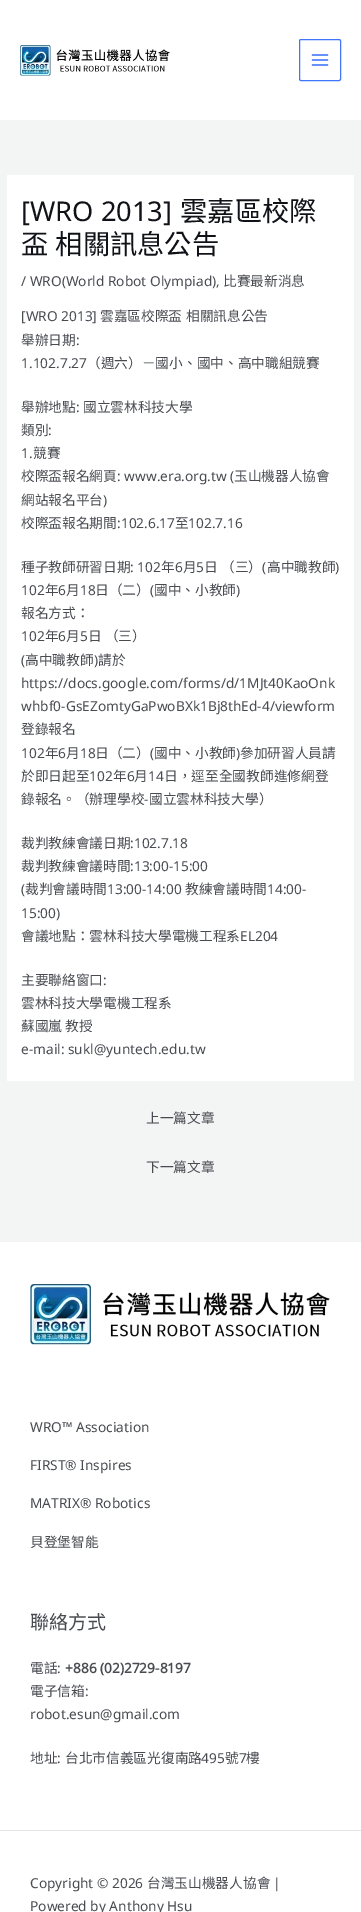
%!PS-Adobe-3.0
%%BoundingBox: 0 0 361 1912
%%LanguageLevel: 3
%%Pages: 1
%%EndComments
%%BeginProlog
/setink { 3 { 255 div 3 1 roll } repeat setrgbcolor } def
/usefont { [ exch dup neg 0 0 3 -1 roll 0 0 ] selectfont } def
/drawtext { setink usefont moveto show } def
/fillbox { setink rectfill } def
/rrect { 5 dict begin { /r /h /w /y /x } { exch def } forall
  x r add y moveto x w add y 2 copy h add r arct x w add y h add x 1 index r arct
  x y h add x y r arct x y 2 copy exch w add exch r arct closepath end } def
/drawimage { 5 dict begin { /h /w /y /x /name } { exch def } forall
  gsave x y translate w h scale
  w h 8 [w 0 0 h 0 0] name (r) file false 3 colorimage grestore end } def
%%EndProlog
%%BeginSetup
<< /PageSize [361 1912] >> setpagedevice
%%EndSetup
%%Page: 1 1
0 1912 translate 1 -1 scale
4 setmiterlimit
0 0 361 1912 243 245 245 fillbox
0 0 361 120 255 255 255 fillbox
(assets/img1.rgb) 20 45 150 31 drawimage
65 117 252 setink
299.5 39.5 41 41 1.5 rrect stroke
(assets/img2.rgb) 311 54 18 12 drawimage
7 175 347 906 255 255 255 fillbox
([WRO 2013]) 21 221 /NotoSans-Regular 27.25 16 18 24 drawtext
(雲嘉區校際) 180 221 /NotoSansCJKTC-Regular 27.25 16 18 24 drawtext
21 254 moveto 1 0 32 (盃 相關訊息公告) widthshow
(/ WRO\(World Robot Olympiad\),) 21 286 /NotoSans-Regular 13.7 73 75 81 drawtext
(比賽最新消息) 223 286 /NotoSansCJKTC-Regular 13.7 73 75 81 drawtext
([WRO 2013]) 21 321 /NotoSans-Regular 13.7 73 75 81 drawtext
(雲嘉區校際盃) 100 321 /NotoSansCJKTC-Regular 13.7 73 75 81 drawtext
(相關訊息公告) 186 321 /NotoSansCJKTC-Regular 13.7 73 75 81 drawtext
(舉辦日期) 21 345 /NotoSansCJKTC-Regular 13.7 73 75 81 drawtext
(:) 76 345 /NotoSans-Regular 13.7 73 75 81 drawtext
(1.102.7.27) 21 368 /NotoSans-Regular 13.7 73 75 81 drawtext
(（週六）－國小、國中、高中職組競賽) 87 368 /NotoSansCJKTC-Regular 13.7 73 75 81 drawtext
(舉辦地點) 21 412 /NotoSansCJKTC-Regular 13.7 73 75 81 drawtext
(:) 76 412 /NotoSans-Regular 13.7 73 75 81 drawtext
(國立雲林科技大學) 83 412 /NotoSansCJKTC-Regular 13.7 73 75 81 drawtext
(類別) 21 435 /NotoSansCJKTC-Regular 13.7 73 75 81 drawtext
(:) 48 435 /NotoSans-Regular 13.7 73 75 81 drawtext
(1.) 21 458 /NotoSans-Regular 13.7 73 75 81 drawtext
(競賽) 33 458 /NotoSansCJKTC-Regular 13.7 73 75 81 drawtext
(校際盃報名網頁) 21 481 /NotoSansCJKTC-Regular 13.7 73 75 81 drawtext
(: www.era.org.tw \() 117 481 /NotoSans-Regular 13.7 73 75 81 drawtext
(玉山機器人協會) 234 481 /NotoSansCJKTC-Regular 13.7 73 75 81 drawtext
(網站報名平台) 21 505 /NotoSansCJKTC-Regular 13.7 73 75 81 drawtext
(\)) 103 505 /NotoSans-Regular 13.7 73 75 81 drawtext
(校際盃報名期間) 21 528 /NotoSansCJKTC-Regular 13.7 73 75 81 drawtext
(:102.6.17) 117 528 /NotoSans-Regular 13.7 73 75 81 drawtext
(至) 175 528 /NotoSansCJKTC-Regular 13.7 73 75 81 drawtext
(102.7.16) 188 528 /NotoSans-Regular 13.7 73 75 81 drawtext
(種子教師研習日期) 21 572 /NotoSansCJKTC-Regular 13.7 73 75 81 drawtext
(: 102) 130 572 /NotoSans-Regular 13.7 73 75 81 drawtext
(年) 161 572 /NotoSansCJKTC-Regular 13.7 73 75 81 drawtext
(6) 175 572 /NotoSans-Regular 13.7 73 75 81 drawtext
(月) 183 572 /NotoSansCJKTC-Regular 13.7 73 75 81 drawtext
(5) 196 572 /NotoSans-Regular 13.7 73 75 81 drawtext
(日) 204 572 /NotoSansCJKTC-Regular 13.7 73 75 81 drawtext
(（三）) 221 572 /NotoSansCJKTC-Regular 13.7 73 75 81 drawtext
(\() 262 572 /NotoSans-Regular 13.7 73 75 81 drawtext
(高中職教師) 267 572 /NotoSansCJKTC-Regular 13.7 73 75 81 drawtext
(\)) 335 572 /NotoSans-Regular 13.7 73 75 81 drawtext
(102) 21 595 /NotoSans-Regular 13.7 73 75 81 drawtext
(年) 45 595 /NotoSansCJKTC-Regular 13.7 73 75 81 drawtext
(6) 58 595 /NotoSans-Regular 13.7 73 75 81 drawtext
(月) 66 595 /NotoSansCJKTC-Regular 13.7 73 75 81 drawtext
(18) 80 595 /NotoSans-Regular 13.7 73 75 81 drawtext
(日（二）) 95 595 /NotoSansCJKTC-Regular 13.7 73 75 81 drawtext
(\() 150 595 /NotoSans-Regular 13.7 73 75 81 drawtext
(國中、小教師) 154 595 /NotoSansCJKTC-Regular 13.7 73 75 81 drawtext
(\)) 236 595 /NotoSans-Regular 13.7 73 75 81 drawtext
(報名方式：) 21 618 /NotoSansCJKTC-Regular 13.7 73 75 81 drawtext
(102) 21 641 /NotoSans-Regular 13.7 73 75 81 drawtext
(年) 45 641 /NotoSansCJKTC-Regular 13.7 73 75 81 drawtext
(6) 58 641 /NotoSans-Regular 13.7 73 75 81 drawtext
(月) 66 641 /NotoSansCJKTC-Regular 13.7 73 75 81 drawtext
(5) 80 641 /NotoSans-Regular 13.7 73 75 81 drawtext
(日 （三）) 88 641 /NotoSansCJKTC-Regular 13.7 73 75 81 drawtext
(\() 21 665 /NotoSans-Regular 13.7 73 75 81 drawtext
(高中職教師) 25 665 /NotoSansCJKTC-Regular 13.7 73 75 81 drawtext
(\)) 94 665 /NotoSans-Regular 13.7 73 75 81 drawtext
(請於) 98 665 /NotoSansCJKTC-Regular 13.7 73 75 81 drawtext
(https://docs.google.com/forms/d/1MJt40KaoOnk) 21 688 /NotoSans-Regular 13.7 73 75 81 drawtext
(whbf0-GsEZomtyGaPwoBXk1Bj8thEd-4/viewform) 21 711 /NotoSans-Regular 13.7 73 75 81 drawtext
(登錄報名) 21 734 /NotoSansCJKTC-Regular 13.7 73 75 81 drawtext
(102) 21 758 /NotoSans-Regular 13.7 73 75 81 drawtext
(年) 45 758 /NotoSansCJKTC-Regular 13.7 73 75 81 drawtext
(6) 58 758 /NotoSans-Regular 13.7 73 75 81 drawtext
(月) 66 758 /NotoSansCJKTC-Regular 13.7 73 75 81 drawtext
(18) 80 758 /NotoSans-Regular 13.7 73 75 81 drawtext
(日（二）) 95 758 /NotoSansCJKTC-Regular 13.7 73 75 81 drawtext
(\() 150 758 /NotoSans-Regular 13.7 73 75 81 drawtext
(國中、小教師) 154 758 /NotoSansCJKTC-Regular 13.7 73 75 81 drawtext
(\)) 236 758 /NotoSans-Regular 13.7 73 75 81 drawtext
(參加研習人員請) 240 758 /NotoSansCJKTC-Regular 13.7 73 75 81 drawtext
(於即日起至) 21 781 /NotoSansCJKTC-Regular 13.7 73 75 81 drawtext
(102) 89 781 /NotoSans-Regular 13.7 73 75 81 drawtext
(年) 113 781 /NotoSansCJKTC-Regular 13.7 73 75 81 drawtext
(6) 127 781 /NotoSans-Regular 13.7 73 75 81 drawtext
(月) 134 781 /NotoSansCJKTC-Regular 13.7 73 75 81 drawtext
(14) 148 781 /NotoSans-Regular 13.7 73 75 81 drawtext
(日，逕至全國教師進修網登) 164 781 /NotoSansCJKTC-Regular 13.7 73 75 81 drawtext
(錄報名。（辦理學校) 21 804 /NotoSansCJKTC-Regular 13.7 73 75 81 drawtext
(-) 144 804 /NotoSans-Regular 13.7 73 75 81 drawtext
(國立雲林科技大學）) 149 804 /NotoSansCJKTC-Regular 13.7 73 75 81 drawtext
(裁判教練會議日期) 21 848 /NotoSansCJKTC-Regular 13.7 73 75 81 drawtext
(:102.7.18) 130 848 /NotoSans-Regular 13.7 73 75 81 drawtext
(裁判教練會議時間) 21 871 /NotoSansCJKTC-Regular 13.7 73 75 81 drawtext
(:13:00-15:00) 130 871 /NotoSans-Regular 13.7 73 75 81 drawtext
(\() 21 894 /NotoSans-Regular 13.7 73 75 81 drawtext
(裁判會議時間) 25 894 /NotoSansCJKTC-Regular 13.7 73 75 81 drawtext
(13:00-14:00) 107 894 /NotoSans-Regular 13.7 73 75 81 drawtext
(教練會議時間) 185 894 /NotoSansCJKTC-Regular 13.7 73 75 81 drawtext
(14:00-) 267 894 /NotoSans-Regular 13.7 73 75 81 drawtext
(15:00\)) 21 918 /NotoSans-Regular 13.7 73 75 81 drawtext
(會議地點：雲林科技大學電機工程系) 21 941 /NotoSansCJKTC-Regular 13.7 73 75 81 drawtext
(EL204) 240 941 /NotoSans-Regular 13.7 73 75 81 drawtext
(主要聯絡窗口) 21 985 /NotoSansCJKTC-Regular 13.7 73 75 81 drawtext
(:) 103 985 /NotoSans-Regular 13.7 73 75 81 drawtext
(雲林科技大學電機工程系) 21 1008 /NotoSansCJKTC-Regular 13.7 73 75 81 drawtext
(蘇國嵐 教授) 21 1031 /NotoSansCJKTC-Regular 13.7 73 75 81 drawtext
(e-mail: sukl@yuntech.edu.tw) 21 1054 /NotoSans-Regular 13.7 73 75 81 drawtext
(上一篇文章) 146 1123 /NotoSansCJKTC-Regular 13.7 73 75 81 drawtext
(下一篇文章) 146 1172 /NotoSansCJKTC-Regular 13.7 73 75 81 drawtext
0 1242 361 670 255 255 255 fillbox
(assets/img3.rgb) 30 1284 300 61 drawimage
(WRO™ Association) 30 1432 /NotoSans-Regular 13.7 73 75 81 drawtext
(FIRST® Inspires) 30 1470 /NotoSans-Regular 13.7 73 75 81 drawtext
(MATRIX® Robotics) 30 1508 /NotoSans-Regular 13.7 73 75 81 drawtext
(貝登堡智能) 30 1547 /NotoSansCJKTC-Regular 13.7 73 75 81 drawtext
(聯絡方式) 30 1629 /NotoSansCJKTC-Regular 19 73 75 81 drawtext
(電話) 30 1673 /NotoSansCJKTC-Regular 13.7 73 75 81 drawtext
(:) 57 1673 /NotoSans-Regular 13.7 73 75 81 drawtext
(+886 \(02\)2729-8197) 65 1673 /NotoSans-Bold 13.7 73 75 81 drawtext
(電子信箱) 30 1696 /NotoSansCJKTC-Regular 13.7 73 75 81 drawtext
(:) 85 1696 /NotoSans-Regular 13.7 73 75 81 drawtext
(robot.esun@gmail.com) 30 1719 /NotoSans-Regular 13.7 73 75 81 drawtext
(地址) 30 1763 /NotoSansCJKTC-Regular 13.7 73 75 81 drawtext
(:) 57 1763 /NotoSans-Regular 13.7 73 75 81 drawtext
(台北市信義區光復南路) 65 1763 /NotoSansCJKTC-Regular 13.7 73 75 81 drawtext
(495) 201 1763 /NotoSans-Regular 13.7 73 75 81 drawtext
(號) 225 1763 /NotoSansCJKTC-Regular 13.7 73 75 81 drawtext
(7) 239 1763 /NotoSans-Regular 13.7 73 75 81 drawtext
(樓) 246 1763 /NotoSansCJKTC-Regular 13.7 73 75 81 drawtext
0 1830 361 1 229 229 229 fillbox
(Copyright © 2026) 30 1888 /NotoSans-Regular 13.7 73 75 81 drawtext
(台灣玉山機器人協會) 147 1888 /NotoSansCJKTC-Regular 13.7 73 75 81 drawtext
(|) 273 1888 /NotoSans-Regular 13.7 73 75 81 drawtext
(Powered by Anthony Hsu) 30 1911 /NotoSans-Regular 13.7 73 75 81 drawtext
showpage
%%EOF
